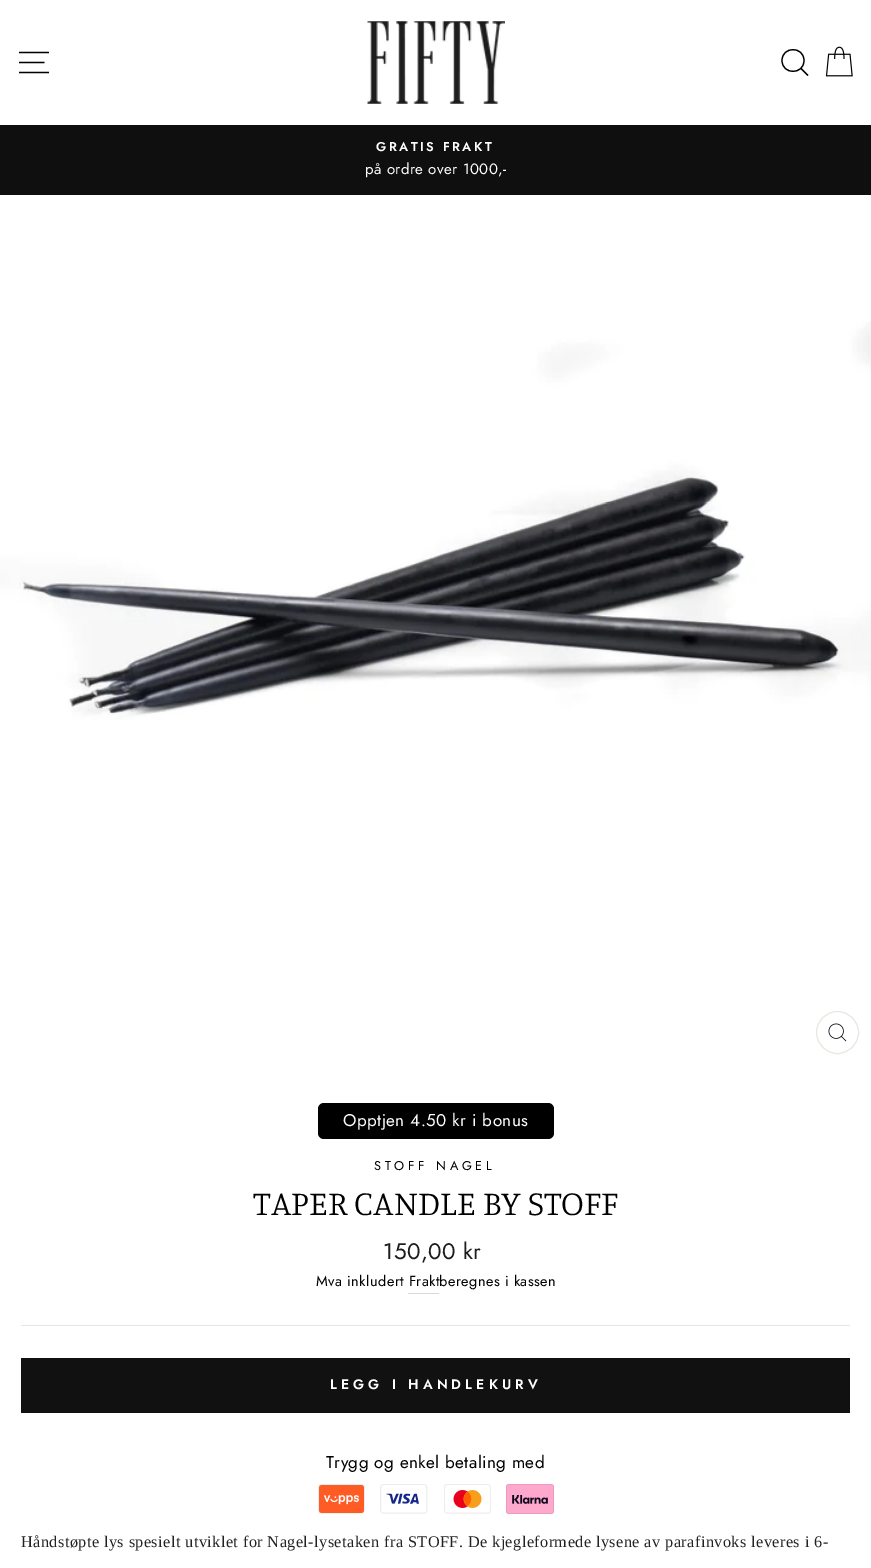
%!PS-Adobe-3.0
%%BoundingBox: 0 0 871 1568
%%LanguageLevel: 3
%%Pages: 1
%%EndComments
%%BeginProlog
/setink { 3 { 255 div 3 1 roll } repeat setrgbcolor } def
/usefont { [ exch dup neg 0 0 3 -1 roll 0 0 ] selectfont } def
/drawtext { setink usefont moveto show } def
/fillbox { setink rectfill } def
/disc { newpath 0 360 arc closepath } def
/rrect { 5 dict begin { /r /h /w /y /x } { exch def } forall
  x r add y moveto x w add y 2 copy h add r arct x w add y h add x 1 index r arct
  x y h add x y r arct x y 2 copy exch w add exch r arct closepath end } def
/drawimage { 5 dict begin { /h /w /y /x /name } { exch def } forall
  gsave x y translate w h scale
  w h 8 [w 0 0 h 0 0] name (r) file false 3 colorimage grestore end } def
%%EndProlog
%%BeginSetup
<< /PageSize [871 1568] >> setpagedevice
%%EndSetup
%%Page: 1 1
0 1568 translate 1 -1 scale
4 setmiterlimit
0 0 871 1568 255 255 255 fillbox
0 0 0 setink
1.2 setlinewidth
19 52.5 moveto 49 52.5 lineto 19 62.5 moveto 44.5 62.5 lineto 19 72.5 moveto 49 72.5 lineto stroke
(assets/img1.rgb) 367 21 138 83 drawimage
804 60.5 moveto 804 75 782 75 782 60.5 curveto 782 46 804 46 804 60.5 curveto closepath 808 75.5 moveto 801 68.5 lineto stroke
(assets/img2.rgb) 825 46 28 31 drawimage
0 125 871 70 15 15 15 fillbox
/Jost-SemiBold 12.75 usefont
255 255 255 setink
376 151 moveto 2.5 0 (GRATIS FRAKT) ashow
/Jost-Regular 15 usefont
365 174 moveto 0.43 0 (på ordre over 1000,-) ashow
(assets/img3.rgb) 0 321 871 399 drawimage
232 232 225 setink
1 setlinewidth
837.5 1032.5 21 disc stroke
(assets/img4.rgb) 828 1023 19 19 drawimage
0 0 0 setink
318 1103 236 36 6 rrect fill
/Jost-Regular 17 usefont
255 255 255 setink
343 1126 moveto 0.43 0 (Opptjen 4.50 kr i bonus) ashow
/Jost-Regular 12.75 usefont
0 0 0 setink
374 1170 moveto 3.75 0 (STOFF NAGEL) ashow
(TAPER CANDLE BY STOFF) 253 1215 /Manuale-Light 34.75 0 0 0 drawtext
/Jost-Regular 22.5 usefont
28 29 29 setink
383 1259 moveto 0.43 0 (150,00 kr) ashow
/Jost-Regular 14.5 usefont
0 0 0 setink
316 1286 moveto 0.43 0 (Mva inkludert Frakt) ashow
439 1286 moveto 0.43 0 (beregnes i kassen) ashow
408 1293 31 1 217 217 217 fillbox
21 1325 829 1 232 232 225 fillbox
21 1358 829 55 17 17 17 fillbox
/Jost-SemiBold 13.75 usefont
255 255 255 setink
330 1389 moveto 4.1 0 (LEGG I HANDLEKURV) ashow
/Jost-Regular 17 usefont
0 0 0 setink
326 1468 moveto 0.43 0 (Trygg og enkel betaling med) ashow
(assets/img5.rgb) 318 1484 47 30 drawimage
(assets/img6.rgb) 380 1484 48 30 drawimage
(assets/img7.rgb) 444 1484 47 30 drawimage
(assets/img8.rgb) 506 1484 48 30 drawimage
/LiberationSerif-Regular 16.25 usefont
34 34 34 setink
21 1547 moveto 0.43 0 (Håndstøpte lys spesielt utviklet for Nagel-lysetaken fra STOFF. De kjegleformede lysene av parafinvoks leveres i 6-) ashow
showpage
%%EOF
